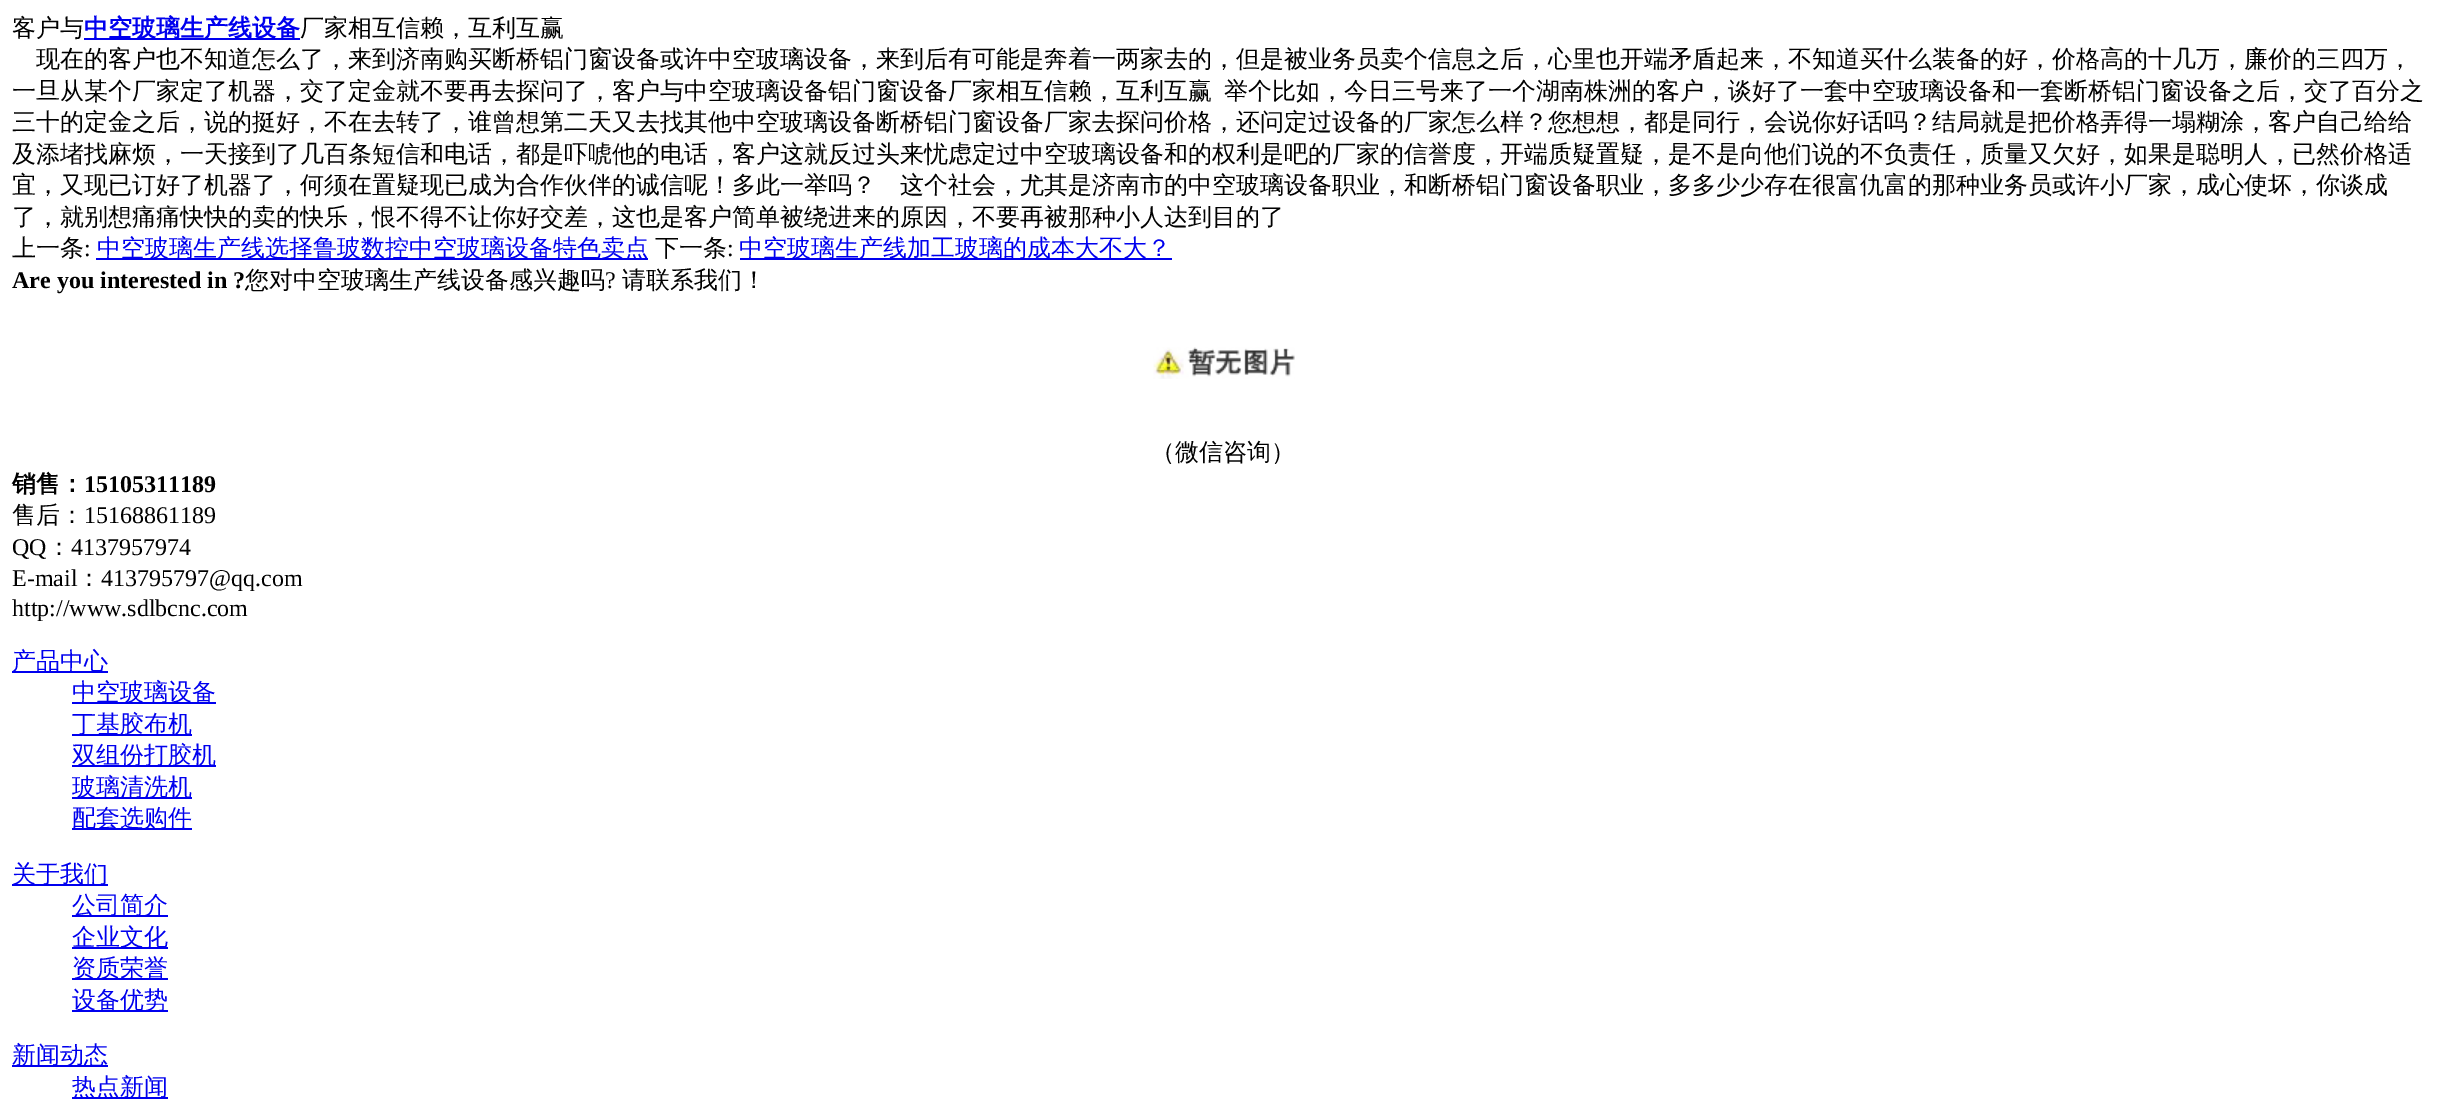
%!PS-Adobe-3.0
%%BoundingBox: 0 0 2445 1117
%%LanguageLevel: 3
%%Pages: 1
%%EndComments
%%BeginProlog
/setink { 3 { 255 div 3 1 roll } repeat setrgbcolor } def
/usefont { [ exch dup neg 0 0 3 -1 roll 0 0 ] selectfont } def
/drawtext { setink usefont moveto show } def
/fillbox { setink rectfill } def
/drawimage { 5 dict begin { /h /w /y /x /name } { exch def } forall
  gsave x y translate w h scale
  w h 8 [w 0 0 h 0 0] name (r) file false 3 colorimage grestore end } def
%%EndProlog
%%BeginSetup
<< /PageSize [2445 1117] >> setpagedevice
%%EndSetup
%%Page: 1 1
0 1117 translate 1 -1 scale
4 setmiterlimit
0 0 2445 1117 255 255 255 fillbox
(客户与) 12 36 /WenQuanYiZenHei-Medium 24 0 0 0 drawtext
84 38 216 2 0 0 238 fillbox
(中空玻璃生产线设备) 84 36 /WenQuanYiZenHei-Bold 24 0 0 238 drawtext
(厂家相互信赖，互利互赢) 300 36 /WenQuanYiZenHei-Medium 24 0 0 0 drawtext
(现在的客户也不知道怎么了，来到济南购买断桥铝门窗设备或许中空玻璃设备，来到后有可能是奔着一两家去的，但是被业务员卖个信息之后，心里也开端矛盾起来，不知道买什么装备的好，价格高的十几万，廉价的三四万，) 36 67 /WenQuanYiZenHei-Medium 24 0 0 0 drawtext
(一旦从某个厂家定了机器，交了定金就不要再去探问了，客户与中空玻璃设备铝门窗设备厂家相互信赖，互利互赢) 12 99 /WenQuanYiZenHei-Medium 24 0 0 0 drawtext
(举个比如，今日三号来了一个湖南株洲的客户，谈好了一套中空玻璃设备和一套断桥铝门窗设备之后，交了百分之) 1224 99 /WenQuanYiZenHei-Medium 24 0 0 0 drawtext
(三十的定金之后，说的挺好，不在去转了，谁曾想第二天又去找其他中空玻璃设备断桥铝门窗设备厂家去探问价格，还问定过设备的厂家怎么样？您想想，都是同行，会说你好话吗？结局就是把价格弄得一塌糊涂，客户自己给给) 12 130 /WenQuanYiZenHei-Medium 24 0 0 0 drawtext
(及添堵找麻烦，一天接到了几百条短信和电话，都是吓唬他的电话，客户这就反过头来忧虑定过中空玻璃设备和的权利是吧的厂家的信誉度，开端质疑置疑，是不是向他们说的不负责任，质量又欠好，如果是聪明人，已然价格适) 12 162 /WenQuanYiZenHei-Medium 24 0 0 0 drawtext
(宜，又现已订好了机器了，何须在置疑现已成为合作伙伴的诚信呢！多此一举吗？) 12 193 /WenQuanYiZenHei-Medium 24 0 0 0 drawtext
(这个社会，尤其是济南市的中空玻璃设备职业，和断桥铝门窗设备职业，多多少少存在很富仇富的那种业务员或许小厂家，成心使坏，你谈成) 900 193 /WenQuanYiZenHei-Medium 24 0 0 0 drawtext
(了，就别想痛痛快快的卖的快乐，恨不得不让你好交差，这也是客户简单被绕进来的原因，不要再被那种小人达到目的了) 12 225 /WenQuanYiZenHei-Medium 24 0 0 0 drawtext
(上一条) 12 256 /WenQuanYiZenHei-Medium 24 0 0 0 drawtext
(:) 84 256 /LiberationSerif-Regular 24 0 0 0 drawtext
96 258 552 2 0 0 238 fillbox
(中空玻璃生产线选择鲁玻数控中空玻璃设备特色卖点) 97 256 /WenQuanYiZenHei-Medium 24 0 0 238 drawtext
(下一条) 655 256 /WenQuanYiZenHei-Medium 24 0 0 0 drawtext
(:) 727 256 /LiberationSerif-Regular 24 0 0 0 drawtext
740 258 432 2 0 0 238 fillbox
(中空玻璃生产线加工玻璃的成本大不大？) 739 256 /WenQuanYiZenHei-Medium 24 0 0 238 drawtext
(Are you interested in ?) 12 288 /LiberationSerif-Bold 24 0 0 0 drawtext
(您对中空玻璃生产线设备感兴趣吗) 245 288 /WenQuanYiZenHei-Medium 24 0 0 0 drawtext
(?) 605 288 /LiberationSerif-Regular 24 0 0 0 drawtext
(请联系我们！) 622 288 /WenQuanYiZenHei-Medium 24 0 0 0 drawtext
(assets/img1.rgb) 1153 347 142 32 drawimage
(（微信咨询）) 1151 460 /WenQuanYiZenHei-Medium 24 0 0 0 drawtext
(销售：) 12 492 /WenQuanYiZenHei-Bold 24 0 0 0 drawtext
(15105311189) 84 492 /LiberationSerif-Bold 24 0 0 0 drawtext
(售后：) 12 523 /WenQuanYiZenHei-Medium 24 0 0 0 drawtext
(15168861189) 84 523 /LiberationSerif-Regular 24 0 0 0 drawtext
(QQ) 12 555 /LiberationSerif-Regular 24 0 0 0 drawtext
(：) 47 555 /WenQuanYiZenHei-Medium 24 0 0 0 drawtext
(4137957974) 71 555 /LiberationSerif-Regular 24 0 0 0 drawtext
(E-mail) 12 586 /LiberationSerif-Regular 24 0 0 0 drawtext
(：) 77 586 /WenQuanYiZenHei-Medium 24 0 0 0 drawtext
(413795797@qq.com) 101 586 /LiberationSerif-Regular 24 0 0 0 drawtext
(http://www.sdlbcnc.com) 12 616 /LiberationSerif-Regular 24 0 0 0 drawtext
12 671 96 2 0 0 238 fillbox
(产品中心) 12 669 /WenQuanYiZenHei-Medium 24 0 0 238 drawtext
72 702 144 2 0 0 238 fillbox
(中空玻璃设备) 72 700 /WenQuanYiZenHei-Medium 24 0 0 238 drawtext
72 734 120 2 0 0 238 fillbox
(丁基胶布机) 72 732 /WenQuanYiZenHei-Medium 24 0 0 238 drawtext
72 765 144 2 0 0 238 fillbox
(双组份打胶机) 72 763 /WenQuanYiZenHei-Medium 24 0 0 238 drawtext
72 797 120 2 0 0 238 fillbox
(玻璃清洗机) 72 795 /WenQuanYiZenHei-Medium 24 0 0 238 drawtext
72 828 120 2 0 0 238 fillbox
(配套选购件) 72 826 /WenQuanYiZenHei-Medium 24 0 0 238 drawtext
12 884 96 2 0 0 238 fillbox
(关于我们) 12 882 /WenQuanYiZenHei-Medium 24 0 0 238 drawtext
72 915 96 2 0 0 238 fillbox
(公司简介) 72 913 /WenQuanYiZenHei-Medium 24 0 0 238 drawtext
72 947 96 2 0 0 238 fillbox
(企业文化) 72 945 /WenQuanYiZenHei-Medium 24 0 0 238 drawtext
72 978 96 2 0 0 238 fillbox
(资质荣誉) 72 976 /WenQuanYiZenHei-Medium 24 0 0 238 drawtext
72 1010 96 2 0 0 238 fillbox
(设备优势) 72 1008 /WenQuanYiZenHei-Medium 24 0 0 238 drawtext
12 1065 96 2 0 0 238 fillbox
(新闻动态) 12 1063 /WenQuanYiZenHei-Medium 24 0 0 238 drawtext
72 1097 96 2 0 0 238 fillbox
(热点新闻) 72 1095 /WenQuanYiZenHei-Medium 24 0 0 238 drawtext
showpage
%%EOF
